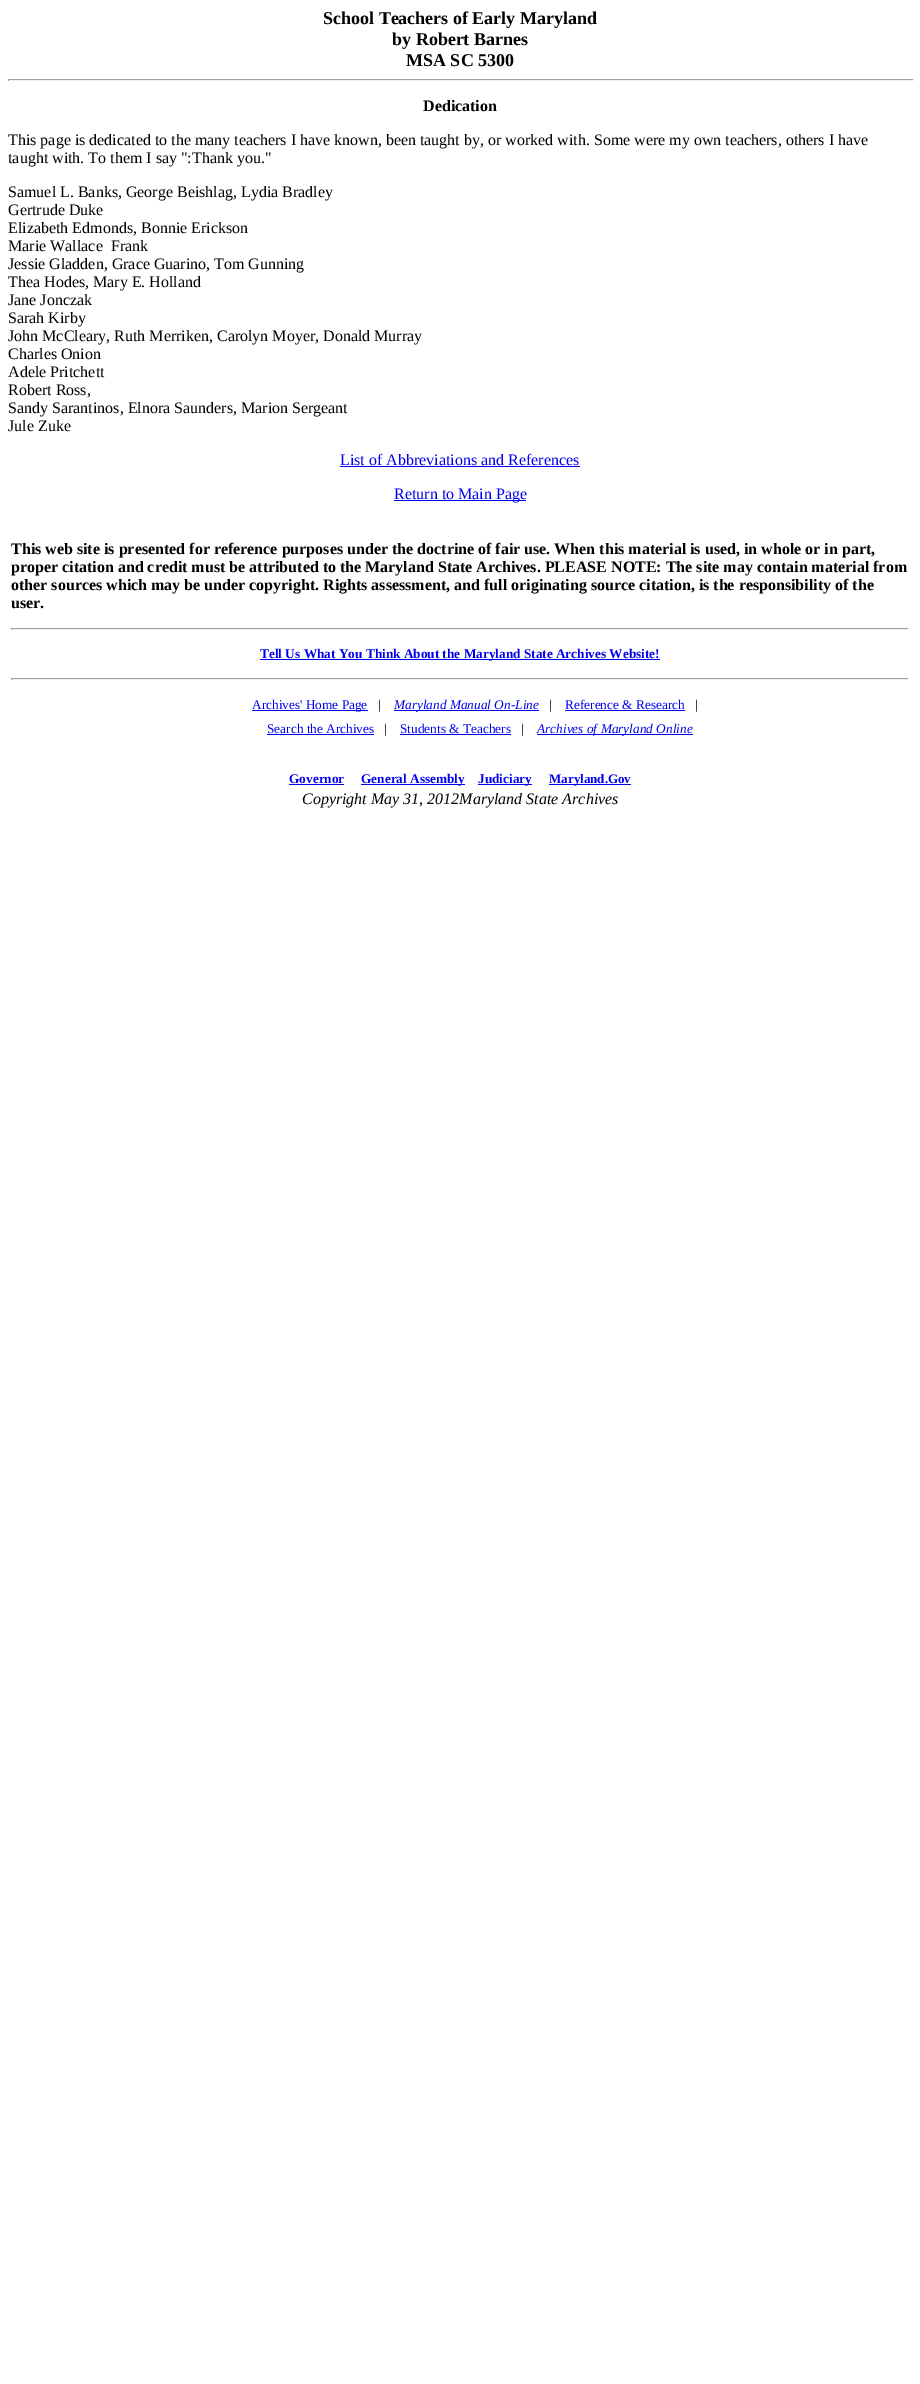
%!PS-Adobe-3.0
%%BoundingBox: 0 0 920 2384
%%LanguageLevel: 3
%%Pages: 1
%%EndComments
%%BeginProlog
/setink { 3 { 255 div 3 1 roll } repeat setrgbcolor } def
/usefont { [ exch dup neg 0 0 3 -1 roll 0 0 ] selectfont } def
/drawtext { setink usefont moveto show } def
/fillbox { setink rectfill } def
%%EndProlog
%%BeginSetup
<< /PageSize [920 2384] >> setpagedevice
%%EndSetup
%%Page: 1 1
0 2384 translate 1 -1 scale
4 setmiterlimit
0 0 920 2384 255 255 255 fillbox
(School Teachers of Early Maryland) 323 24 /LiberationSerif-Bold 18 0 0 0 drawtext
(by Robert Barnes) 392 45 /LiberationSerif-Bold 18 0 0 0 drawtext
(MSA SC 5300) 406 66 /LiberationSerif-Bold 18 0 0 0 drawtext
8 79 906 1 159 159 159 fillbox
913 79 1 2 238 238 238 fillbox
8 80 906 1 238 238 238 fillbox
8 79 1 2 159 159 159 fillbox
(Dedication) 423 111 /LiberationSerif-Bold 16 0 0 0 drawtext
(This page is dedicated to the many teachers I have known, been taught by, or worked with. Some were my own teachers, others I have) 8 145 /LiberationSerif-Regular 16 0 0 0 drawtext
(taught with. To them I say ":Thank you.") 8 163 /LiberationSerif-Regular 16 0 0 0 drawtext
(Samuel L. Banks, George Beishlag, Lydia Bradley) 8 197 /LiberationSerif-Regular 16 0 0 0 drawtext
(Gertrude Duke) 8 215 /LiberationSerif-Regular 16 0 0 0 drawtext
(Elizabeth Edmonds, Bonnie Erickson) 8 233 /LiberationSerif-Regular 16 0 0 0 drawtext
(Marie Wallace  Frank) 8 251 /LiberationSerif-Regular 16 0 0 0 drawtext
(Jessie Gladden, Grace Guarino, Tom Gunning) 8 269 /LiberationSerif-Regular 16 0 0 0 drawtext
(Thea Hodes, Mary E. Holland) 8 287 /LiberationSerif-Regular 16 0 0 0 drawtext
(Jane Jonczak) 8 305 /LiberationSerif-Regular 16 0 0 0 drawtext
(Sarah Kirby) 8 323 /LiberationSerif-Regular 16 0 0 0 drawtext
(John McCleary, Ruth Merriken, Carolyn Moyer, Donald Murray) 8 341 /LiberationSerif-Regular 16 0 0 0 drawtext
(Charles Onion) 8 359 /LiberationSerif-Regular 16 0 0 0 drawtext
(Adele Pritchett) 8 377 /LiberationSerif-Regular 16 0 0 0 drawtext
(Robert Ross,) 8 395 /LiberationSerif-Regular 16 0 0 0 drawtext
(Sandy Sarantinos, Elnora Saunders, Marion Sergeant) 8 413 /LiberationSerif-Regular 16 0 0 0 drawtext
(Jule Zuke) 8 431 /LiberationSerif-Regular 16 0 0 0 drawtext
(List of Abbreviations and References) 340 465 /LiberationSerif-Regular 16 0 0 238 drawtext
340 466 240 1 0 0 238 fillbox
394 500 132 1 0 0 238 fillbox
(Return to Main Page) 394 499 /LiberationSerif-Regular 16 0 0 238 drawtext
(This web site is presented for reference purposes under the doctrine of fair use. When this material is used, in whole or in part,) 11 554 /LiberationSerif-Bold 16 0 0 0 drawtext
(proper citation and credit must be attributed to the Maryland State Archives. PLEASE NOTE: The site may contain material from) 11 572 /LiberationSerif-Bold 16 0 0 0 drawtext
(other sources which may be under copyright. Rights assessment, and full originating source citation, is the responsibility of the) 11 590 /LiberationSerif-Bold 16 0 0 0 drawtext
(user.) 11 608 /LiberationSerif-Bold 16 0 0 0 drawtext
11 628 898 1 159 159 159 fillbox
908 628 1 2 238 238 238 fillbox
11 629 898 1 238 238 238 fillbox
11 628 1 2 159 159 159 fillbox
260 659 400 1 0 0 238 fillbox
(Tell Us What You Think About the Maryland State Archives Website!) 260 658 /LiberationSerif-Bold 13.3 0 0 238 drawtext
11 678 898 1 159 159 159 fillbox
908 678 1 2 238 238 238 fillbox
11 679 898 1 238 238 238 fillbox
11 678 1 2 159 159 159 fillbox
252 710 116 1 0 0 238 fillbox
(Archives' Home Page) 252 709 /LiberationSerif-Regular 13.3 0 0 238 drawtext
(|) 378 709 /LiberationSerif-Regular 13.3 0 0 0 drawtext
394 710 145 1 0 0 238 fillbox
(Maryland Manual On-Line) 394 709 /LiberationSerif-Italic 13.3 0 0 238 drawtext
(|) 549 709 /LiberationSerif-Regular 13.3 0 0 0 drawtext
(Reference & Research) 565 709 /LiberationSerif-Regular 13.3 0 0 238 drawtext
565 710 120 1 0 0 238 fillbox
(|) 695 709 /LiberationSerif-Regular 13.3 0 0 0 drawtext
(Search the Archives) 267 733 /LiberationSerif-Regular 13.3 0 0 238 drawtext
267 734 107 1 0 0 238 fillbox
(|) 384 733 /LiberationSerif-Regular 13.3 0 0 0 drawtext
(Students & Teachers) 400 733 /LiberationSerif-Regular 13.3 0 0 238 drawtext
400 734 111 1 0 0 238 fillbox
(|) 521 733 /LiberationSerif-Regular 13.3 0 0 0 drawtext
537 734 156 1 0 0 238 fillbox
(Archives of Maryland Online) 537 733 /LiberationSerif-Italic 13.3 0 0 238 drawtext
(Governor) 289 783 /LiberationSerif-Bold 13.3 0 0 238 drawtext
289 784 55 1 0 0 238 fillbox
361 784 104 1 0 0 238 fillbox
(General Assembly) 361 783 /LiberationSerif-Bold 13.3 0 0 238 drawtext
478 784 54 1 0 0 238 fillbox
(Judiciary) 478 783 /LiberationSerif-Bold 13.3 0 0 238 drawtext
549 784 82 1 0 0 238 fillbox
(Maryland.Gov) 549 783 /LiberationSerif-Bold 13 0 0 238 drawtext
(Copyright May 31, 2012Maryland State Archives) 302 804 /LiberationSerif-Italic 16 0 0 0 drawtext
showpage
%%EOF
